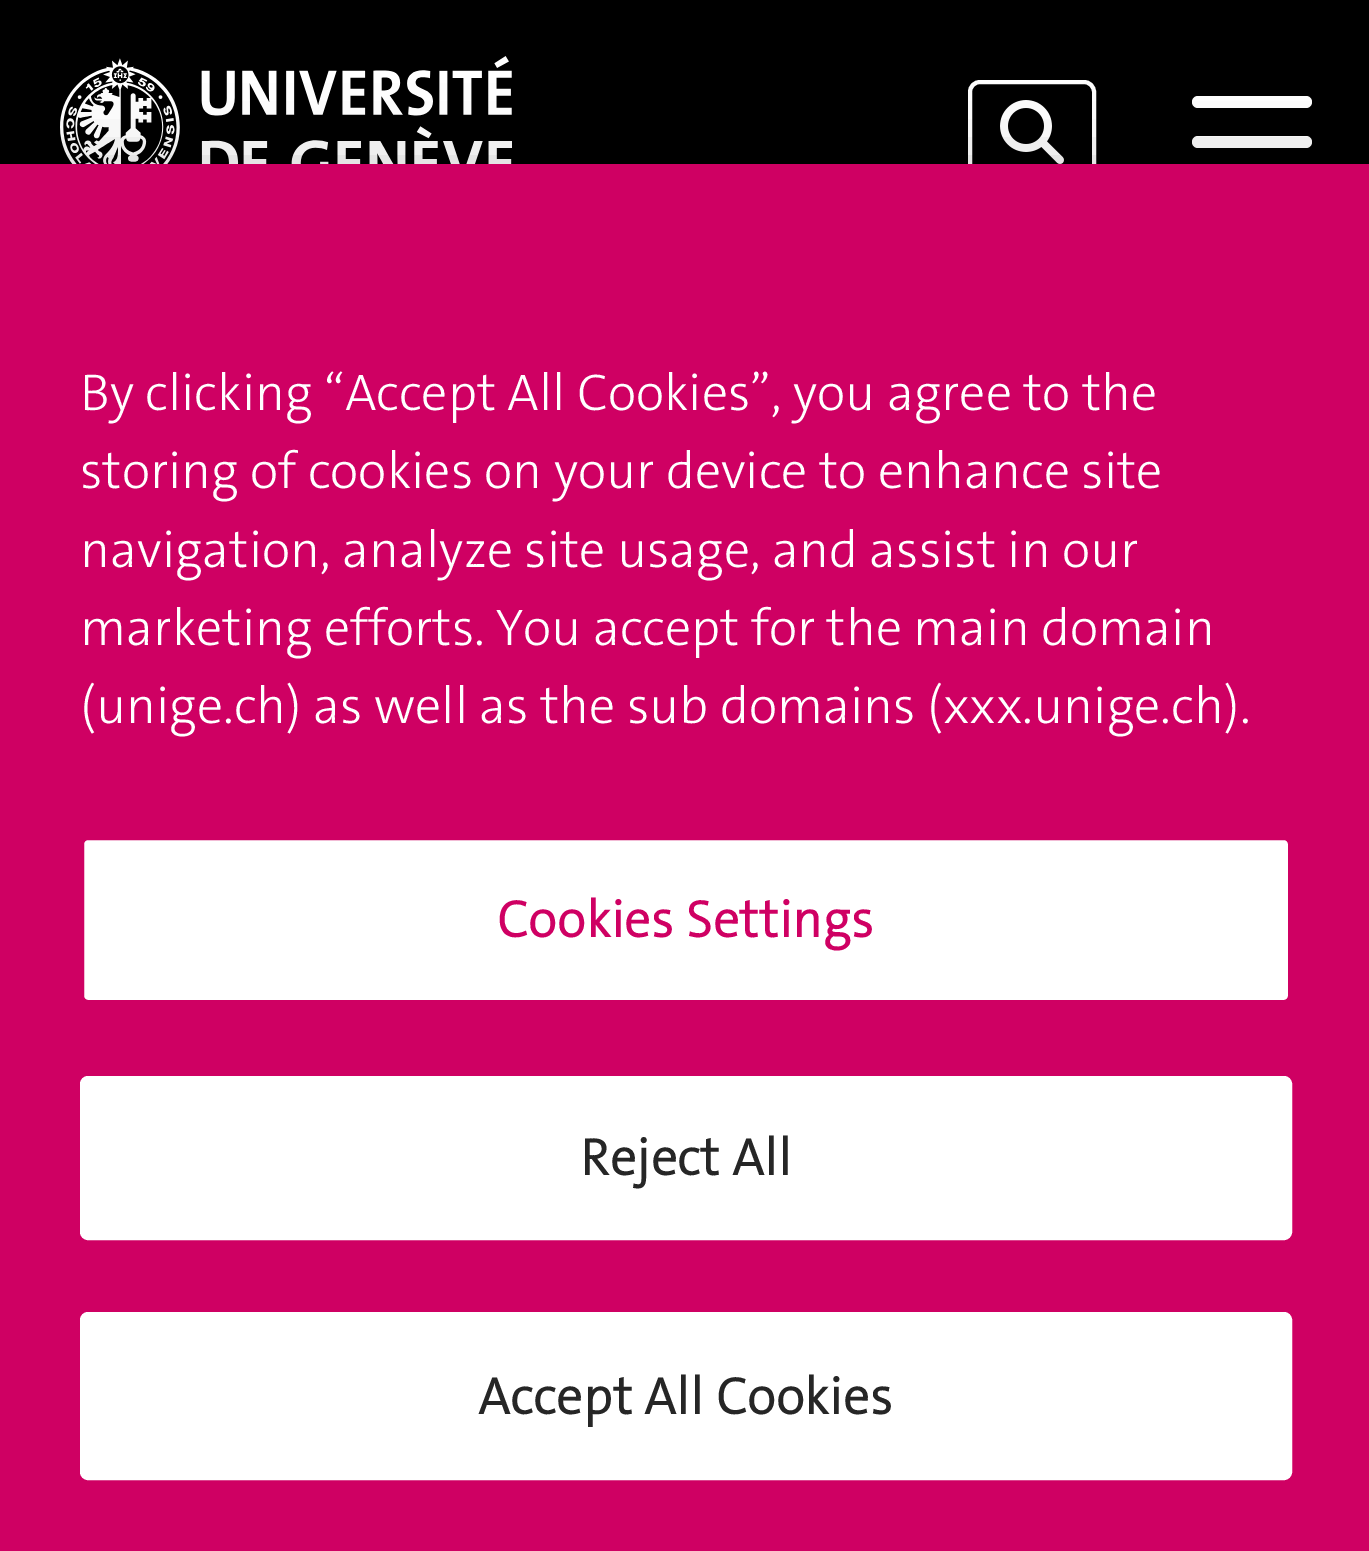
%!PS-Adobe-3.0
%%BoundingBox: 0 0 1369 1551
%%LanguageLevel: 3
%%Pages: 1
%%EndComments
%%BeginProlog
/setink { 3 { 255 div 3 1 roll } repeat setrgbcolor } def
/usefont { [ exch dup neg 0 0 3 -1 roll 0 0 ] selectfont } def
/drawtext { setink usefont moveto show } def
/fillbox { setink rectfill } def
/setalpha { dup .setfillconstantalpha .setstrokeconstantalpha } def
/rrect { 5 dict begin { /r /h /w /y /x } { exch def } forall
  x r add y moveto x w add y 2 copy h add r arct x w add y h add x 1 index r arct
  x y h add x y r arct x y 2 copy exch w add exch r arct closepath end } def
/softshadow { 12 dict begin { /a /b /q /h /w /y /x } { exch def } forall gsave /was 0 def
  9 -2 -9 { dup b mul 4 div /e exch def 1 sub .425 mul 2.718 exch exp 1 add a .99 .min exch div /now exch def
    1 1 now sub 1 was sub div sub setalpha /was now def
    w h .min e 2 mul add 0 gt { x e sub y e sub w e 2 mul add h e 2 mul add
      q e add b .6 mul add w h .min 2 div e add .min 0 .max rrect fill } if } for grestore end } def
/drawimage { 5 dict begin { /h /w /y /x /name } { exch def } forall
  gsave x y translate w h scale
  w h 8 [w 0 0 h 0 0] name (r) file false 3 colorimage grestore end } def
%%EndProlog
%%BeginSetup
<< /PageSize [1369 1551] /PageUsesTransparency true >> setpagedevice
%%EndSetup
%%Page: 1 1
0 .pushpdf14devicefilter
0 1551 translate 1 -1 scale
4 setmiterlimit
0 0 1369 1551 0 0 0 fillbox
(assets/img1.rgb) 60 56 452 108 drawimage
255 255 255 setink
4 setlinewidth
970 82 124 112 10 rrect stroke
(assets/img2.rgb) 1000 100 64 64 drawimage
1192 96 120 12 6 rrect fill
1192 136 120 12 6 rrect fill
0 0 0 setink
0 164 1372 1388 0 36 0.2 softshadow
0 164 1369 1387 207 0 99 fillbox
(By clicking “Accept All Cookies”, you agree to the) 80 410 /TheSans-Light 52 255 255 255 drawtext
(storing of cookies on your device to enhance site) 80 488 /TheSans-Light 52 255 255 255 drawtext
(navigation, analyze site usage, and assist in our) 80 567 /TheSans-Light 52 255 255 255 drawtext
(marketing efforts. You accept for the main domain) 80 645 /TheSans-Light 52 255 255 255 drawtext
(\(unige.ch\) as well as the sub domains \(xxx.unige.ch\).) 80 723 /TheSans-Light 52 255 255 255 drawtext
82 838 1208 164 6 rrect gsave fill grestore
207 0 99 setink
stroke
/TheSans-Bold 52 usefont
497 937 moveto 0.5 0 (Cookies Settings) ashow
255 255 255 setink
82 1078 1208 160 6 rrect gsave fill grestore
stroke
38 38 38 setink
580 1175 moveto 0.5 0 (Reject All) ashow
255 255 255 setink
82 1314 1208 164 6 rrect gsave fill grestore
stroke
38 38 38 setink
478 1414 moveto 0.5 0 (Accept All Cookies) ashow
.poppdf14devicefilter showpage
%%EOF
